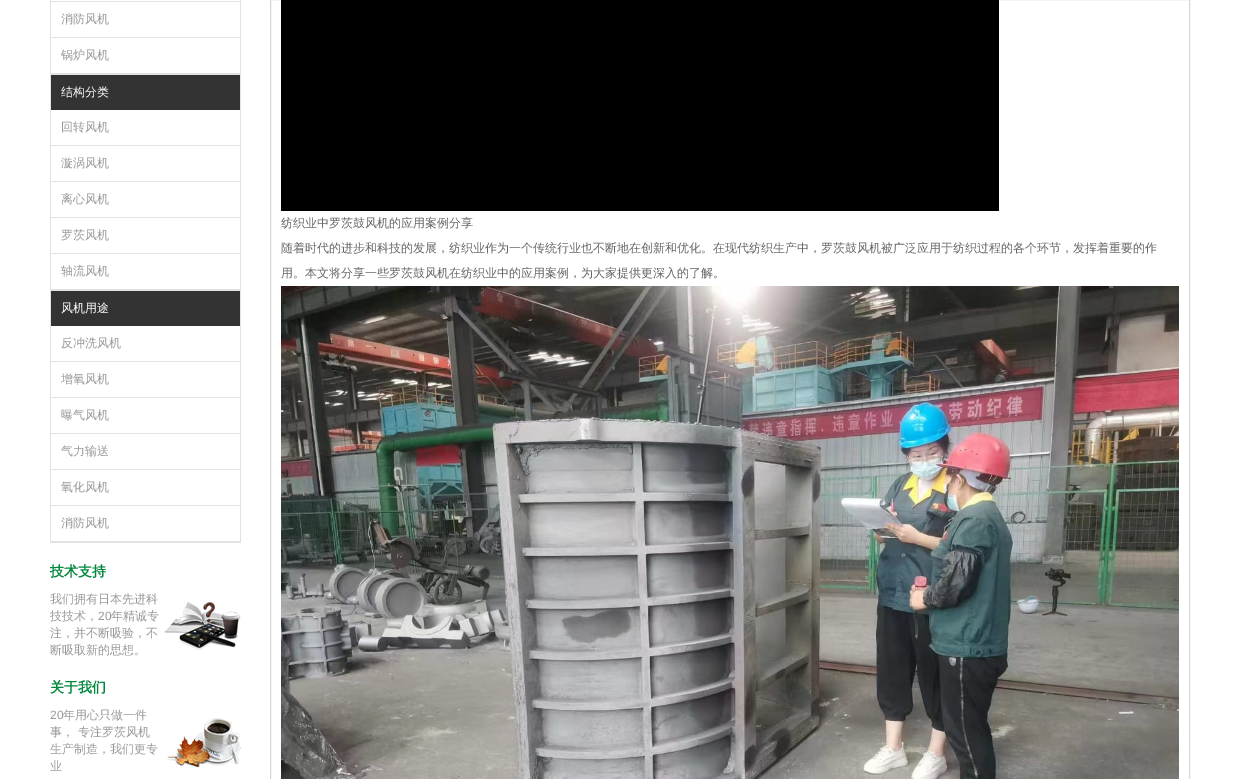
%!PS-Adobe-3.0
%%BoundingBox: 0 0 1239 779
%%LanguageLevel: 3
%%Pages: 1
%%EndComments
%%BeginProlog
/setink { 3 { 255 div 3 1 roll } repeat setrgbcolor } def
/usefont { [ exch dup neg 0 0 3 -1 roll 0 0 ] selectfont } def
/drawtext { setink usefont moveto show } def
/fillbox { setink rectfill } def
/drawimage { 5 dict begin { /h /w /y /x /name } { exch def } forall
  gsave x y translate w h scale
  w h 8 [w 0 0 h 0 0] name (r) file false 3 colorimage grestore end } def
%%EndProlog
%%BeginSetup
<< /PageSize [1239 779] >> setpagedevice
%%EndSetup
%%Page: 1 1
0 779 translate 1 -1 scale
4 setmiterlimit
0 0 1239 779 255 255 255 fillbox
240 0 1 543 226 226 226 fillbox
50 74 191 1 226 226 226 fillbox
50 0 1 75 226 226 226 fillbox
51 1 189 1 226 226 226 fillbox
51 37 189 1 226 226 226 fillbox
(消防风机) 61 23 /WenQuanYiZenHei-Medium 12 153 153 153 drawtext
51 73 189 1 226 226 226 fillbox
(锅炉风机) 61 59 /WenQuanYiZenHei-Medium 12 153 153 153 drawtext
51 75 189 35 51 51 51 fillbox
50 290 191 1 226 226 226 fillbox
50 75 1 216 226 226 226 fillbox
(结构分类) 61 96 /WenQuanYiZenHei-Medium 12 255 255 255 drawtext
51 145 189 1 226 226 226 fillbox
(回转风机) 61 131 /WenQuanYiZenHei-Medium 12 153 153 153 drawtext
51 181 189 1 226 226 226 fillbox
(漩涡风机) 61 167 /WenQuanYiZenHei-Medium 12 153 153 153 drawtext
51 217 189 1 226 226 226 fillbox
(离心风机) 61 203 /WenQuanYiZenHei-Medium 12 153 153 153 drawtext
51 253 189 1 226 226 226 fillbox
(罗茨风机) 61 239 /WenQuanYiZenHei-Medium 12 153 153 153 drawtext
51 289 189 1 226 226 226 fillbox
(轴流风机) 61 275 /WenQuanYiZenHei-Medium 12 153 153 153 drawtext
51 291 189 35 51 51 51 fillbox
50 542 191 1 226 226 226 fillbox
50 291 1 252 226 226 226 fillbox
(风机用途) 61 312 /WenQuanYiZenHei-Medium 12 255 255 255 drawtext
51 361 189 1 226 226 226 fillbox
(反冲洗风机) 61 347 /WenQuanYiZenHei-Medium 12 153 153 153 drawtext
51 397 189 1 226 226 226 fillbox
(增氧风机) 61 383 /WenQuanYiZenHei-Medium 12 153 153 153 drawtext
51 433 189 1 226 226 226 fillbox
(曝气风机) 61 419 /WenQuanYiZenHei-Medium 12 153 153 153 drawtext
51 469 189 1 226 226 226 fillbox
(气力输送) 61 455 /WenQuanYiZenHei-Medium 12 153 153 153 drawtext
51 505 189 1 226 226 226 fillbox
(氧化风机) 61 491 /WenQuanYiZenHei-Medium 12 153 153 153 drawtext
51 541 189 1 226 226 226 fillbox
(消防风机) 61 527 /WenQuanYiZenHei-Medium 12 153 153 153 drawtext
(技术支持) 50 576 /WenQuanYiZenHei-Bold 14 0 136 60 drawtext
(assets/img1.rgb) 164 602 77 48 drawimage
(我们拥有日本先进科) 50 603 /WenQuanYiZenHei-Medium 12 153 153 153 drawtext
(技技术，) 50 620 /WenQuanYiZenHei-Medium 12 153 153 153 drawtext
(20) 98 620 /LiberationSans-Regular 12 153 153 153 drawtext
(年精诚专) 111 620 /WenQuanYiZenHei-Medium 12 153 153 153 drawtext
(注，并不断吸验，不) 50 637 /WenQuanYiZenHei-Medium 12 153 153 153 drawtext
(断吸取新的思想。) 50 654 /WenQuanYiZenHei-Medium 12 153 153 153 drawtext
(关于我们) 50 692 /WenQuanYiZenHei-Bold 14 0 136 60 drawtext
(assets/img2.rgb) 167 718 74 50 drawimage
(20) 50 719 /LiberationSans-Regular 12 153 153 153 drawtext
(年用心只做一件) 63 719 /WenQuanYiZenHei-Medium 12 153 153 153 drawtext
(事， 专注罗茨风机) 50 736 /WenQuanYiZenHei-Medium 12 153 153 153 drawtext
(生产制造，我们更专) 50 753 /WenQuanYiZenHei-Medium 12 153 153 153 drawtext
(业) 50 770 /WenQuanYiZenHei-Medium 12 153 153 153 drawtext
215 215 215 setink
270.5 -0.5 919 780 rectstroke
281 0 718 211 0 0 0 fillbox
(纺织业中罗茨鼓风机的应用案例分享) 281 227 /WenQuanYiZenHei-Medium 12 102 102 102 drawtext
(随着时代的进步和科技的发展，纺织业作为一个传统行业也不断地在创新和优化。在现代纺织生产中，罗茨鼓风机被广泛应用于纺织过程的各个环节，发挥着重要的作) 281 252 /WenQuanYiZenHei-Medium 12 102 102 102 drawtext
(用。本文将分享一些罗茨鼓风机在纺织业中的应用案例，为大家提供更深入的了解。) 281 277 /WenQuanYiZenHei-Medium 12 102 102 102 drawtext
(assets/img3.rgb) 281 286 898 493 drawimage
showpage
%%EOF
